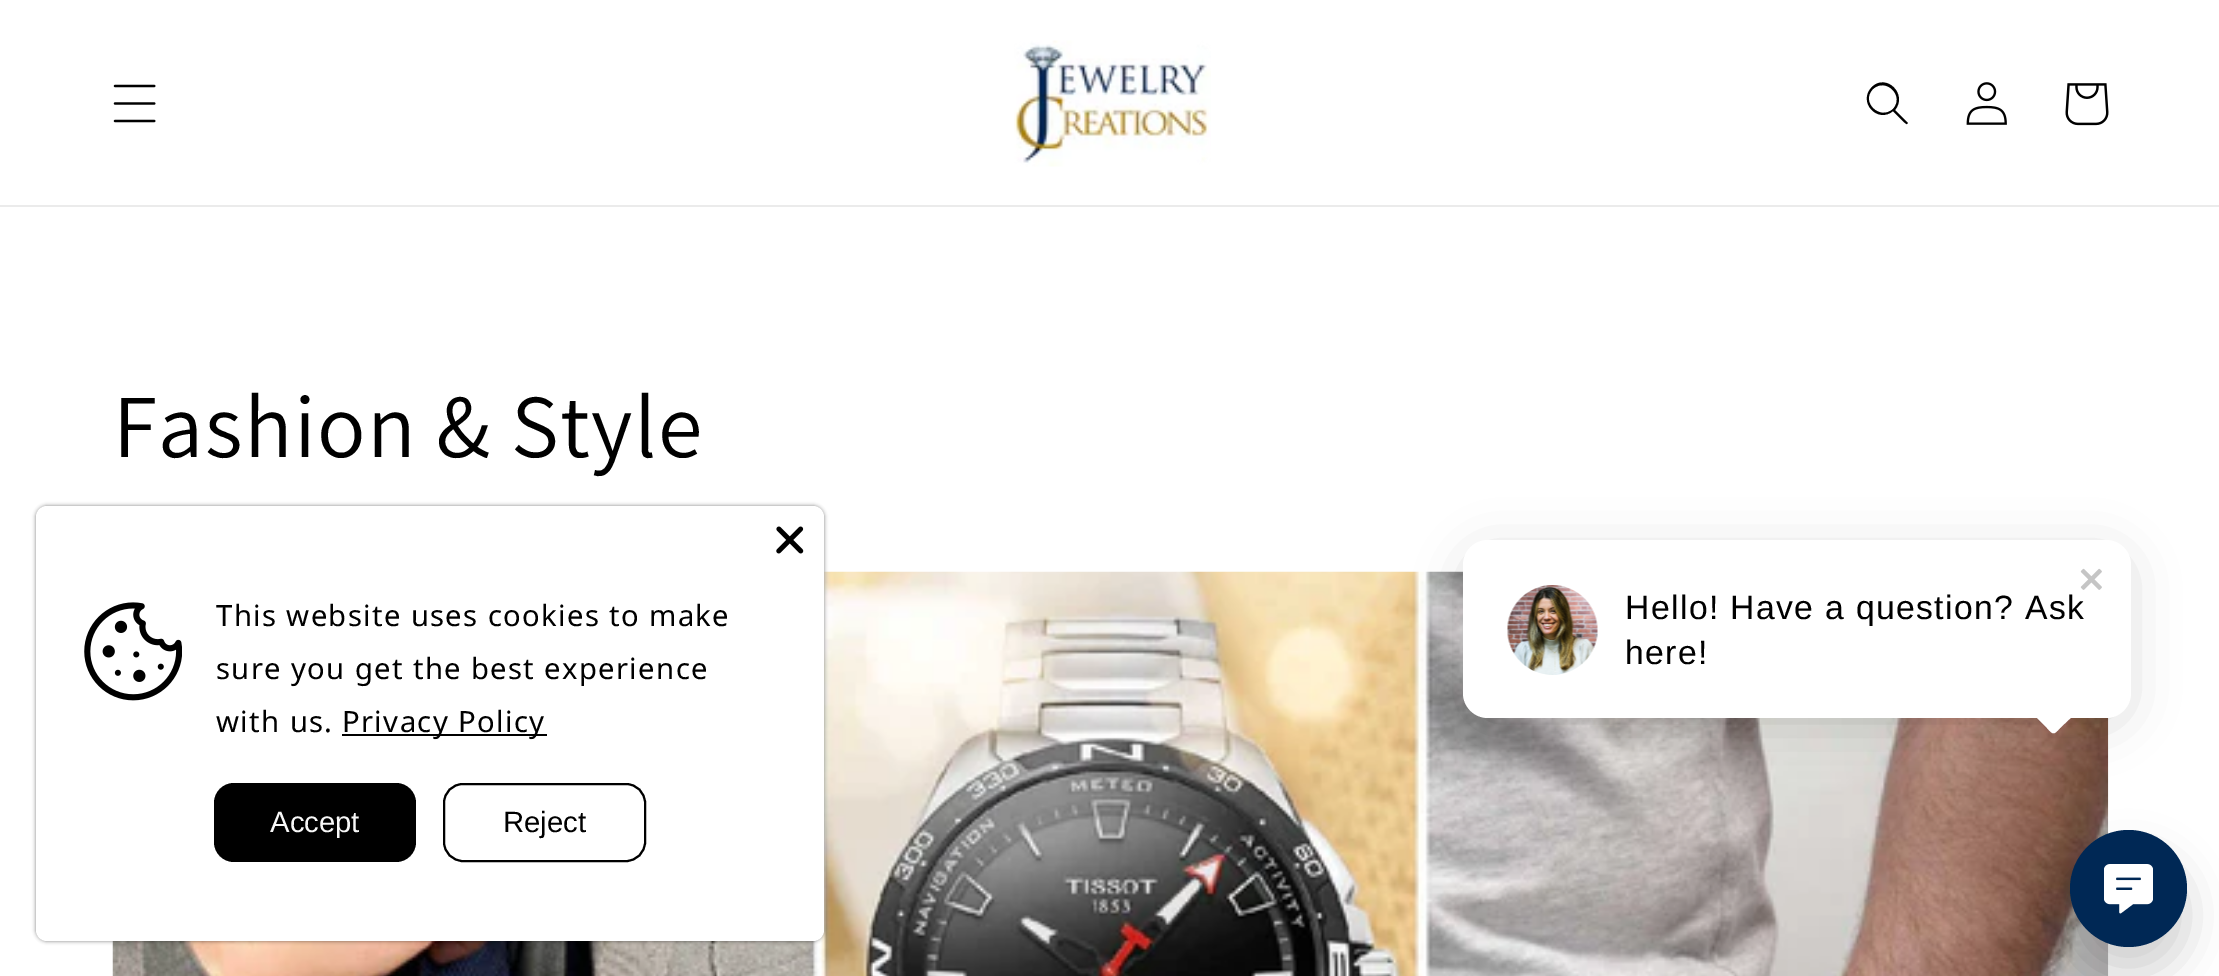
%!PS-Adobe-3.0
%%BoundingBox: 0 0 2219 976
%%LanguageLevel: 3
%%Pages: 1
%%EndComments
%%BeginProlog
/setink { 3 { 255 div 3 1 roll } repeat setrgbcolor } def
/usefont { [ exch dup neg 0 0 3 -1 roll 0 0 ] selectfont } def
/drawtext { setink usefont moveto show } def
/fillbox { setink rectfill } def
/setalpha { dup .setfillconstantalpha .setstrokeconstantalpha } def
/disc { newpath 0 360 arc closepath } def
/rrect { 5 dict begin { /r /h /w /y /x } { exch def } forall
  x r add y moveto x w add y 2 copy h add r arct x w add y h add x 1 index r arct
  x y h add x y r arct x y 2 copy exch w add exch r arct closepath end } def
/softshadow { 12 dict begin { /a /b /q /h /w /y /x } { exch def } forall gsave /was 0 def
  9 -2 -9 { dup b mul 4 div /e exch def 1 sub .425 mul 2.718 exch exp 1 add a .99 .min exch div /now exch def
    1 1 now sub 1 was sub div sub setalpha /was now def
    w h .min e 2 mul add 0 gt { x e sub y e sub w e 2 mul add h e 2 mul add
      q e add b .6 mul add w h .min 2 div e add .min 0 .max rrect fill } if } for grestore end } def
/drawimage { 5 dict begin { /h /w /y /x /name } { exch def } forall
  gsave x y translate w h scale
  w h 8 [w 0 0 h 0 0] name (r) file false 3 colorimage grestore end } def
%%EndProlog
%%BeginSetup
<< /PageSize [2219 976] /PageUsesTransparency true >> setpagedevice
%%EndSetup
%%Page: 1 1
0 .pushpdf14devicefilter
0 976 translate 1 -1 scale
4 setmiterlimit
0 0 2219 976 255 255 255 fillbox
0 205 2219 2 235 235 235 fillbox
(assets/img1.rgb) 113 84 43 39 drawimage
(assets/img2.rgb) 1014 40 197 127 drawimage
0 0 0 setink
1893 109 moveto 1880 121 1860 102 1873 89 curveto 1886 77 1905 96 1893 109 curveto closepath 1893 111 moveto 1878 124 1857 102 1872 87 curveto 1886 73 1908 94 1895 110 curveto 1908 123 lineto 1907 124 lineto 1906 125 1895 113 1893 111 curveto closepath eofill
(assets/img3.rgb) 1966 82 41 43 drawimage
(assets/img4.rgb) 2065 83 44 43 drawimage
/Assistant-Regular 90 usefont
113 457 moveto 1.35 0 (Fashion & Style) ashow
(assets/img5.rgb) 112 571 1997 405 drawimage
36 506 788 435 11 2 0.5 softshadow
255 255 255 setink
36 506 788 435 11 rrect fill
(assets/img6.rgb) 776 526 28 28 drawimage
(assets/img7.rgb) 84 602 98 99 drawimage
/NotoSans-Regular 29.25 usefont
0 0 0 setink
216 626 moveto 1.35 0 (This website uses cookies to make) ashow
216 679 moveto 1.35 0 (sure you get the best experience) ashow
216 732 moveto 1.35 0 (with us.) ashow
342 734 205 2 0 0 0 fillbox
342 732 moveto 1.35 0 (Privacy Policy) ashow
214 783 202 79 20 rrect fill
(Accept) 270 832 /LiberationSans-Regular 29.25 248 248 248 drawtext
0 0 0 setink
2 setlinewidth
444 784 201 77 19 rrect stroke
(Reject) 503 832 /LiberationSans-Regular 29.25 0 0 0 drawtext
1472 558 650 160 16 27 0.18 softshadow
255 255 255 setink
1463 540 668 178 25 rrect fill
(assets/img8.rgb) 2080 568 22 22 drawimage
(assets/img9.rgb) 1507 585 91 90 drawimage
/LiberationSans-Regular 33.75 usefont
0 0 0 setink
1625 619 moveto 1.35 0 (Hello! Have a question? Ask) ashow
1625 664 moveto 1.35 0 (here!) ashow
255 255 255 setink
2030 711 moveto 2047 728 lineto 2053 735 2054 735 2060 728 curveto 2078 711 lineto closepath eofill
0 0 0 setink
2070 857 117 117 58.5 21.5 0.18 softshadow
0 40 85 setink
2128.5 888.5 58.5 disc fill
(assets/img10.rgb) 2104 864 49 50 drawimage
.poppdf14devicefilter showpage
%%EOF
